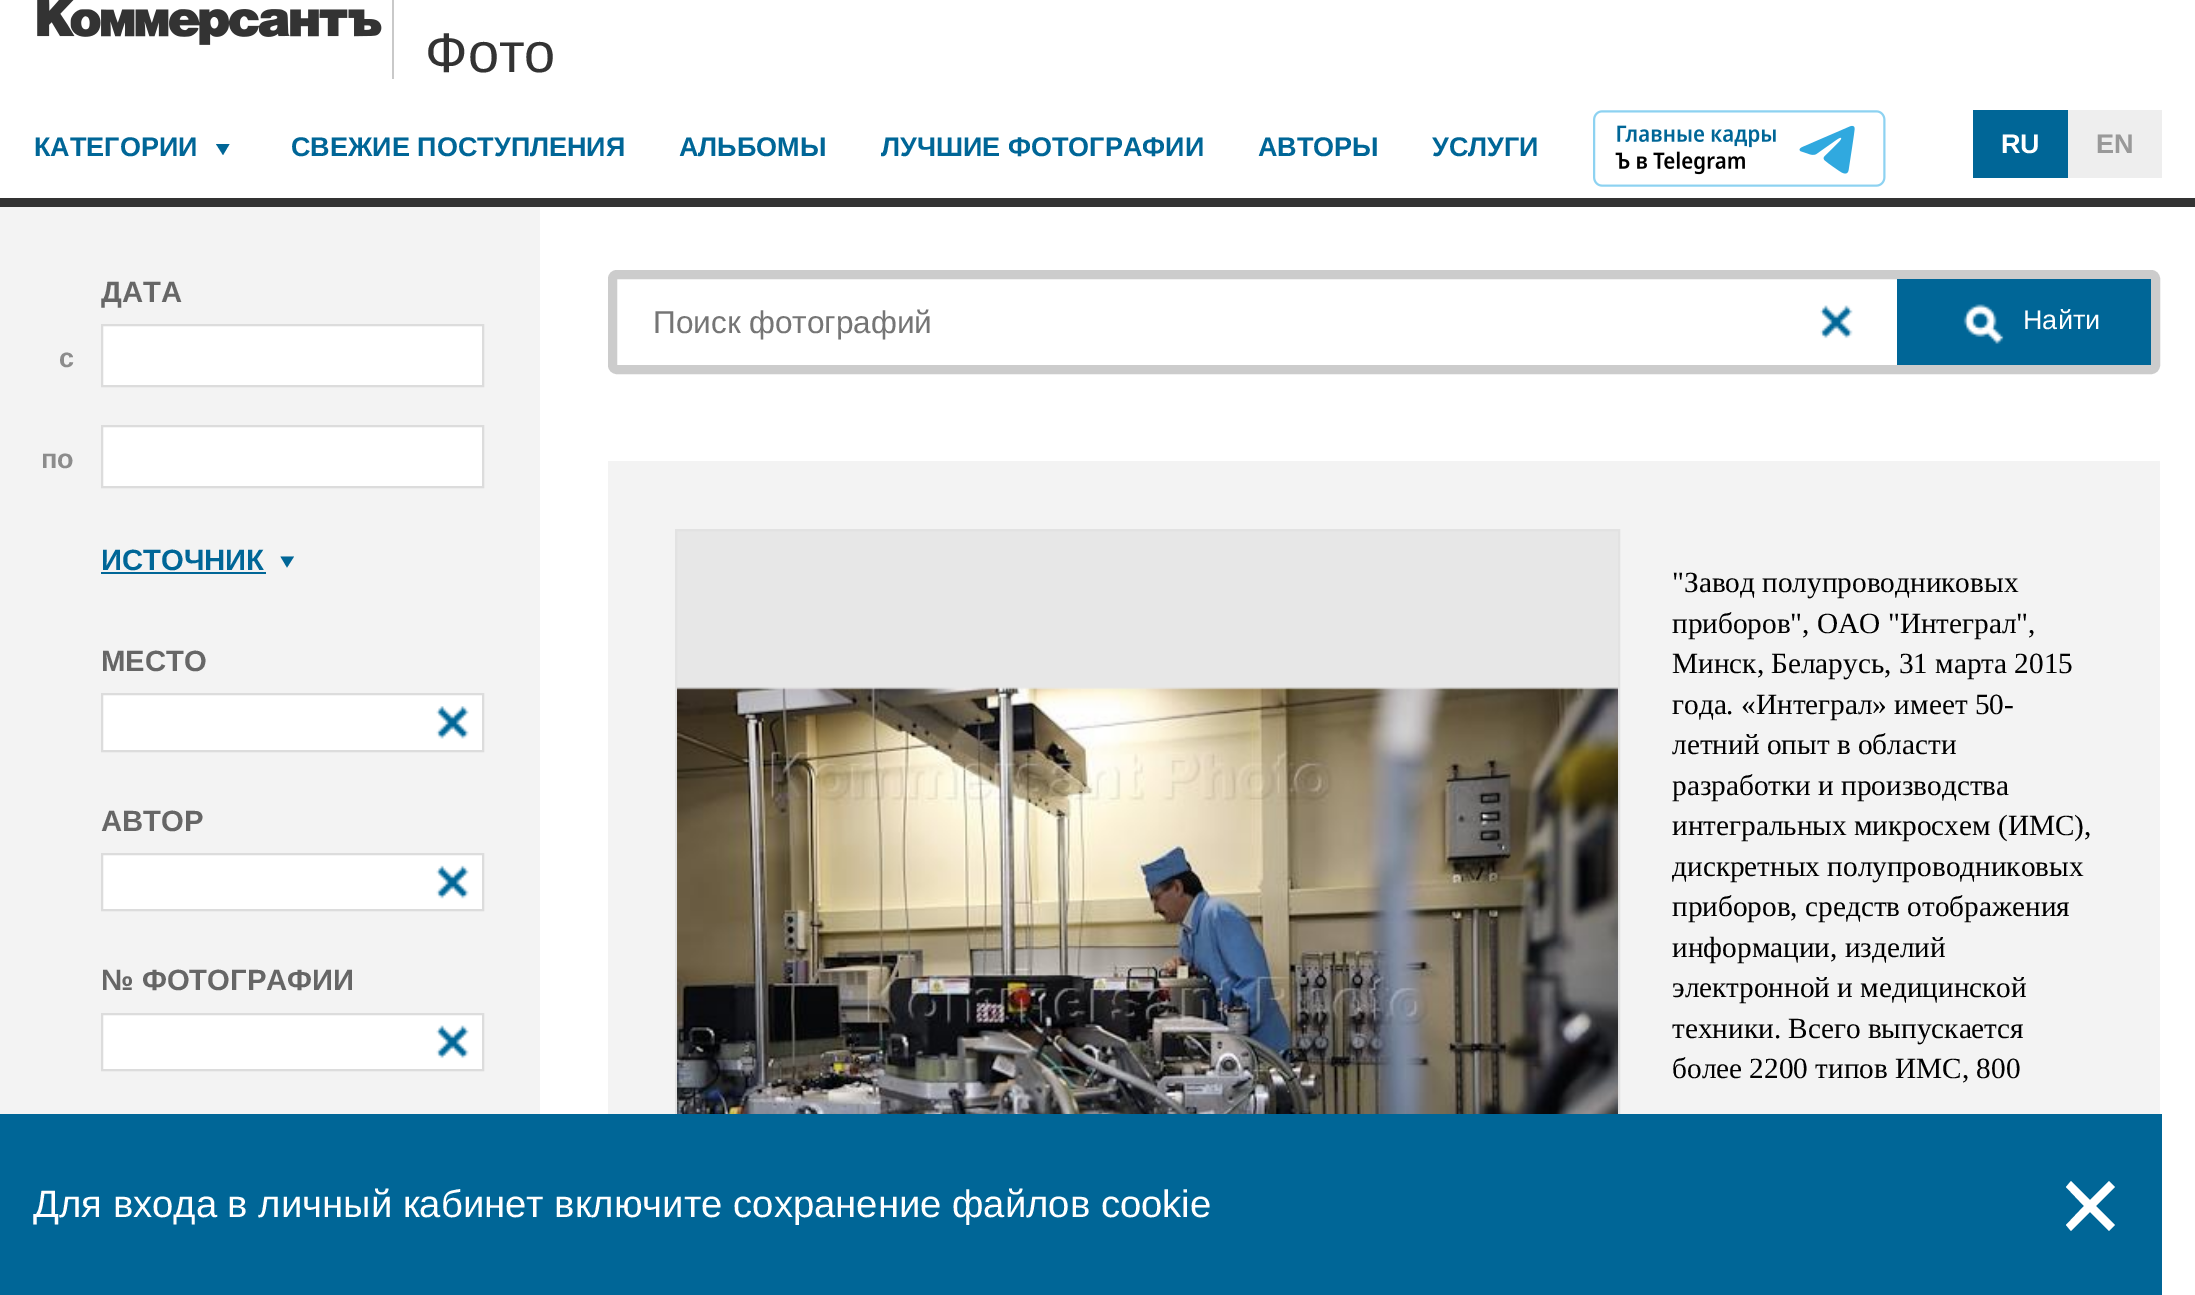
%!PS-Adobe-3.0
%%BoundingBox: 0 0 2195 1295
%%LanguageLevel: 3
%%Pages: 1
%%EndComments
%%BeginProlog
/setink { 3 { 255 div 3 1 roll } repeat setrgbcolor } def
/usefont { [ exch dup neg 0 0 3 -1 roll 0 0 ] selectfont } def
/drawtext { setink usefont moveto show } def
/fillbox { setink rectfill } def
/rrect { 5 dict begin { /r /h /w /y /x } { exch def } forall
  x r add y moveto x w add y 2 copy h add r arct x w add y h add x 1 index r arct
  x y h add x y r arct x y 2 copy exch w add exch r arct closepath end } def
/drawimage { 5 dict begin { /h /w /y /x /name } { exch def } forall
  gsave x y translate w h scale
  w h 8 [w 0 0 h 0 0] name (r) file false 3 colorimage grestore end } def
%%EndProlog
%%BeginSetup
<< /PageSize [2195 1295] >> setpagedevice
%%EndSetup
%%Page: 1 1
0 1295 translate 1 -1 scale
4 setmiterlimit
0 0 2195 1295 255 255 255 fillbox
(assets/img1.rgb) 37 0 345 45 drawimage
392 0 2 79 201 201 201 fillbox
(Фото) 425 72 /LiberationSans-Regular 56 51 51 51 drawtext
(КАТЕГОРИИ) 34 156 /LiberationSans-Bold 27 0 102 151 drawtext
216 144 moveto 229.5 144 lineto 223 155 lineto closepath fill
(СВЕЖИЕ ПОСТУПЛЕНИЯ) 291 156 /LiberationSans-Bold 27 0 102 151 drawtext
(АЛЬБОМЫ) 679 156 /LiberationSans-Bold 27 0 102 151 drawtext
(ЛУЧШИЕ ФОТОГРАФИИ) 881 156 /LiberationSans-Bold 27 0 102 151 drawtext
(АВТОРЫ) 1258 156 /LiberationSans-Bold 27 0 102 151 drawtext
(УСЛУГИ) 1432 156 /LiberationSans-Bold 27 0 102 151 drawtext
(assets/img2.rgb) 1593 110 293 77 drawimage
1973 110 95 68 0 102 151 fillbox
(RU) 2001 153 /LiberationSans-Bold 27 255 255 255 drawtext
2068 110 94 68 238 238 238 fillbox
(EN) 2096 153 /LiberationSans-Bold 27 153 153 153 drawtext
0 198 2195 9 51 51 51 fillbox
0 207 540 907 243 243 243 fillbox
(ДАТА) 101 302 /LiberationSans-Bold 29.25 102 102 102 drawtext
(с) 59 367 /LiberationSans-Bold 27 140 140 140 drawtext
255 255 255 setink
102 325 moveto 483 325 lineto 483 386 lineto 102 386 lineto closepath gsave fill grestore
220 220 220 setink
2 setlinewidth
stroke
(по) 41 468 /LiberationSans-Bold 27 140 140 140 drawtext
255 255 255 setink
102 426 moveto 483 426 lineto 483 487 lineto 102 487 lineto closepath gsave fill grestore
220 220 220 setink
stroke
(ИСТОЧНИК) 101 570 /LiberationSans-Bold 29.25 0 102 151 drawtext
101 572 165 2 0 102 151 fillbox
280.5 556.5 moveto 294 556.5 lineto 287 567.5 lineto closepath fill
(МЕСТО) 101 671 /LiberationSans-Bold 29.25 102 102 102 drawtext
255 255 255 setink
102 694 moveto 483 694 lineto 483 751 lineto 102 751 lineto closepath gsave fill grestore
220 220 220 setink
stroke
(assets/img3.rgb) 436 706 33 33 drawimage
(АВТОР) 101 831 /LiberationSans-Bold 29.25 102 102 102 drawtext
255 255 255 setink
102 854 moveto 483 854 lineto 483 910 lineto 102 910 lineto closepath gsave fill grestore
220 220 220 setink
stroke
(assets/img4.rgb) 436 865 33 34 drawimage
(№ ФОТОГРАФИИ) 101 990 /LiberationSans-Bold 29.25 102 102 102 drawtext
255 255 255 setink
102 1014 moveto 483 1014 lineto 483 1070 lineto 102 1070 lineto closepath gsave fill grestore
220 220 220 setink
stroke
(assets/img5.rgb) 436 1025 33 34 drawimage
204 204 204 setink
9 setlinewidth
612.5 274.5 1543 95 4.5 rrect stroke
(Поиск фотографий) 653 333 /LiberationSans-Regular 31.5 117 117 117 drawtext
(assets/img6.rgb) 1820 305 33 34 drawimage
1897 279 254 86 0 102 151 fillbox
(assets/img7.rgb) 1963 304 41 40 drawimage
(Найти) 2023 329 /LiberationSans-Regular 27 255 255 255 drawtext
608 461 1552 653 243 243 243 fillbox
677 531 941 159 231 231 231 fillbox
226 226 226 setink
2 setlinewidth
676 530 943 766 rectstroke
(assets/img8.rgb) 677 687 941 427 drawimage
("Завод полупроводниковых) 1672 592 /LiberationSerif-Regular 29.25 0 0 0 drawtext
(приборов", ОАО "Интеграл",) 1672 633 /LiberationSerif-Regular 29.25 0 0 0 drawtext
(Минск, Беларусь, 31 марта 2015) 1672 673 /LiberationSerif-Regular 29.25 0 0 0 drawtext
(года. «Интеграл» имеет 50-) 1672 714 /LiberationSerif-Regular 29.25 0 0 0 drawtext
(летний опыт в области) 1672 754 /LiberationSerif-Regular 29.25 0 0 0 drawtext
(разработки и производства) 1672 795 /LiberationSerif-Regular 29.25 0 0 0 drawtext
(интегральных микросхем \(ИМС\),) 1672 835 /LiberationSerif-Regular 29.25 0 0 0 drawtext
(дискретных полупроводниковых) 1672 876 /LiberationSerif-Regular 29.25 0 0 0 drawtext
(приборов, средств отображения) 1672 916 /LiberationSerif-Regular 29.25 0 0 0 drawtext
(информации, изделий) 1672 957 /LiberationSerif-Regular 29.25 0 0 0 drawtext
(электронной и медицинской) 1672 997 /LiberationSerif-Regular 29.25 0 0 0 drawtext
(техники. Всего выпускается) 1672 1038 /LiberationSerif-Regular 29.25 0 0 0 drawtext
(более 2200 типов ИМС, 800) 1672 1078 /LiberationSerif-Regular 29.25 0 0 0 drawtext
0 1114 2162 181 0 102 151 fillbox
(Для входа в личный кабинет включите сохранение файлов cookie) 33 1217 /LiberationSans-Regular 38.25 255 255 255 drawtext
2115 1187 moveto 2109 1181 lineto 2090 1200 lineto 2071 1181 lineto 2066 1187 lineto 2084 1206 lineto 2066 1225 lineto 2071 1231 lineto 2090 1212 lineto 2109 1231 lineto 2115 1225 lineto 2096 1206 lineto closepath fill
showpage
%%EOF
